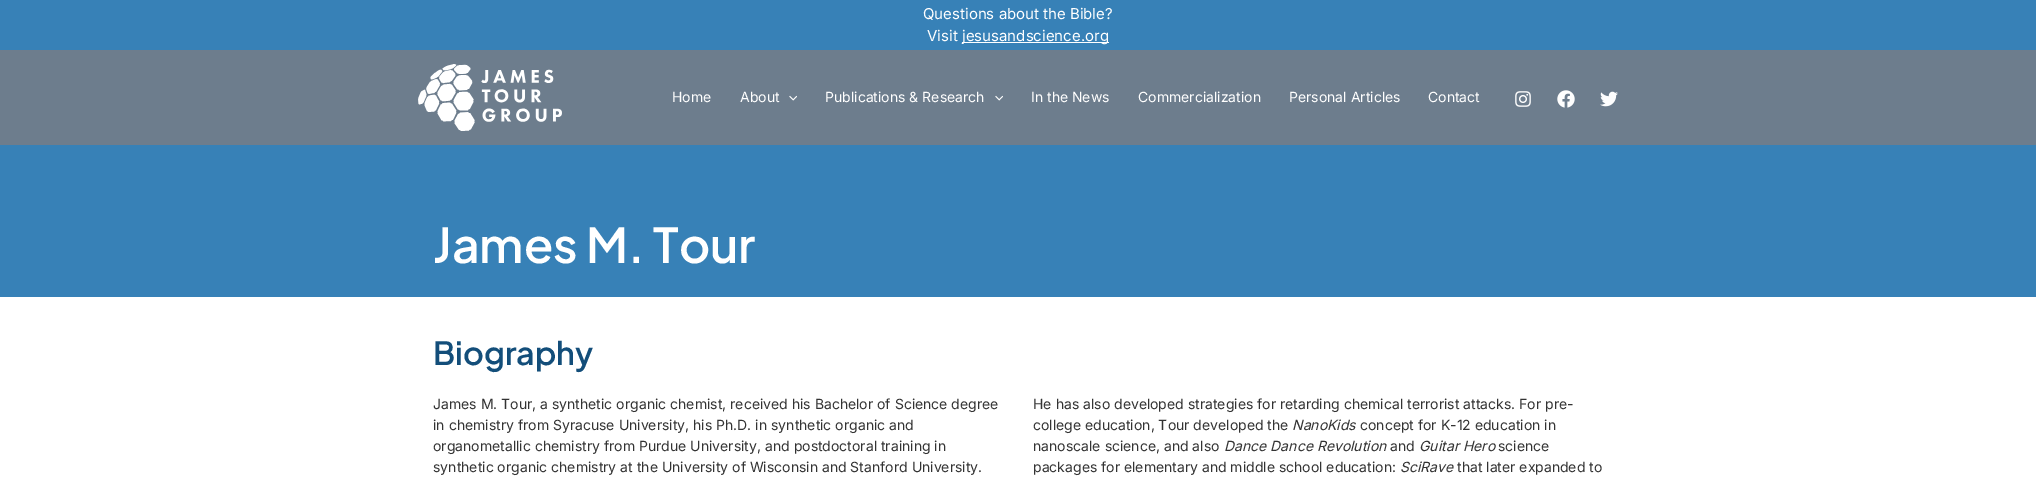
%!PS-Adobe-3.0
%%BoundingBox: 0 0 2036 482
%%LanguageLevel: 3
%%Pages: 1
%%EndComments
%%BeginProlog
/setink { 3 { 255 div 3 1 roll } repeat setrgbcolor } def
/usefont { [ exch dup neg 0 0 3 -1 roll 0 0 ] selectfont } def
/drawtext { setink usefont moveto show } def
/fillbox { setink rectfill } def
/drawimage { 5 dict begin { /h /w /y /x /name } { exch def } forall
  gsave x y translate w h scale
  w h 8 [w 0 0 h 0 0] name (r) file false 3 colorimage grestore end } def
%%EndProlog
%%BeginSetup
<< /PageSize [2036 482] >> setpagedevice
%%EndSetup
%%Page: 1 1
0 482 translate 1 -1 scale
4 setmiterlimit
0 0 2036 482 255 255 255 fillbox
0 0 2036 50 55 129 183 fillbox
(Questions about the Bible?) 923 19 /Inter-Regular 15 255 255 255 drawtext
(Visit) 927 41 /Inter-Regular 15 255 255 255 drawtext
962 42 147 1 255 255 255 fillbox
(jesusandscience.org) 962 41 /Inter-Regular 15 255 255 255 drawtext
0 50 2036 95 109 125 141 fillbox
(assets/img1.rgb) 418 64 144 67 drawimage
(Home) 672 102 /Inter-Regular 14 255 255 255 drawtext
(About) 740 102 /Inter-Regular 14 255 255 255 drawtext
(assets/img2.rgb) 789 95 8 6 drawimage
(Publications & Research) 825 102 /Inter-Regular 14 255 255 255 drawtext
(assets/img2.rgb) 995 95 8 6 drawimage
(In the News) 1031 102 /Inter-Regular 14 255 255 255 drawtext
(Commercialization) 1138 102 /Inter-Regular 14 255 255 255 drawtext
(Personal Articles) 1289 102 /Inter-Regular 14 255 255 255 drawtext
(Contact) 1428 102 /Inter-Regular 14 255 255 255 drawtext
(assets/img3.rgb) 1515 91 16 16 drawimage
(assets/img4.rgb) 1557 90 18 18 drawimage
(assets/img5.rgb) 1600 91 18 16 drawimage
0 145 2036 152 55 129 183 fillbox
(James M. Tour) 433 263 /PlusJakartaSans-SemiBold 48 255 255 255 drawtext
(Biography) 433 365 /PlusJakartaSans-SemiBold 32 19 78 122 drawtext
(James M. Tour, a synthetic organic chemist, received his Bachelor of Science degree) 433 409 /Inter-Regular 14 51 51 51 drawtext
(in chemistry from Syracuse University, his Ph.D. in synthetic organic and) 433 430 /Inter-Regular 14 51 51 51 drawtext
(organometallic chemistry from Purdue University, and postdoctoral training in) 433 451 /Inter-Regular 14 51 51 51 drawtext
(synthetic organic chemistry at the University of Wisconsin and Stanford University.) 433 472 /Inter-Regular 14 51 51 51 drawtext
(He has also developed strategies for retarding chemical terrorist attacks. For pre-) 1033 409 /Inter-Regular 14 51 51 51 drawtext
(college education, Tour developed the) 1033 430 /Inter-Regular 14 51 51 51 drawtext
(NanoKids) 1292 430 /Inter-Italic 14 51 51 51 drawtext
(concept for K-12 education in) 1360 430 /Inter-Regular 14 51 51 51 drawtext
(nanoscale science, and also) 1033 451 /Inter-Regular 14 51 51 51 drawtext
(Dance Dance Revolution) 1224 451 /Inter-Italic 14 51 51 51 drawtext
(and) 1390 451 /Inter-Regular 14 51 51 51 drawtext
(Guitar Hero) 1419 451 /Inter-Italic 14 51 51 51 drawtext
(science) 1498 451 /Inter-Regular 14 51 51 51 drawtext
(packages for elementary and middle school education:) 1033 472 /Inter-Regular 14 51 51 51 drawtext
(SciRave) 1400 472 /Inter-Italic 14 51 51 51 drawtext
(that later expanded to) 1457 472 /Inter-Regular 14 51 51 51 drawtext
showpage
%%EOF
